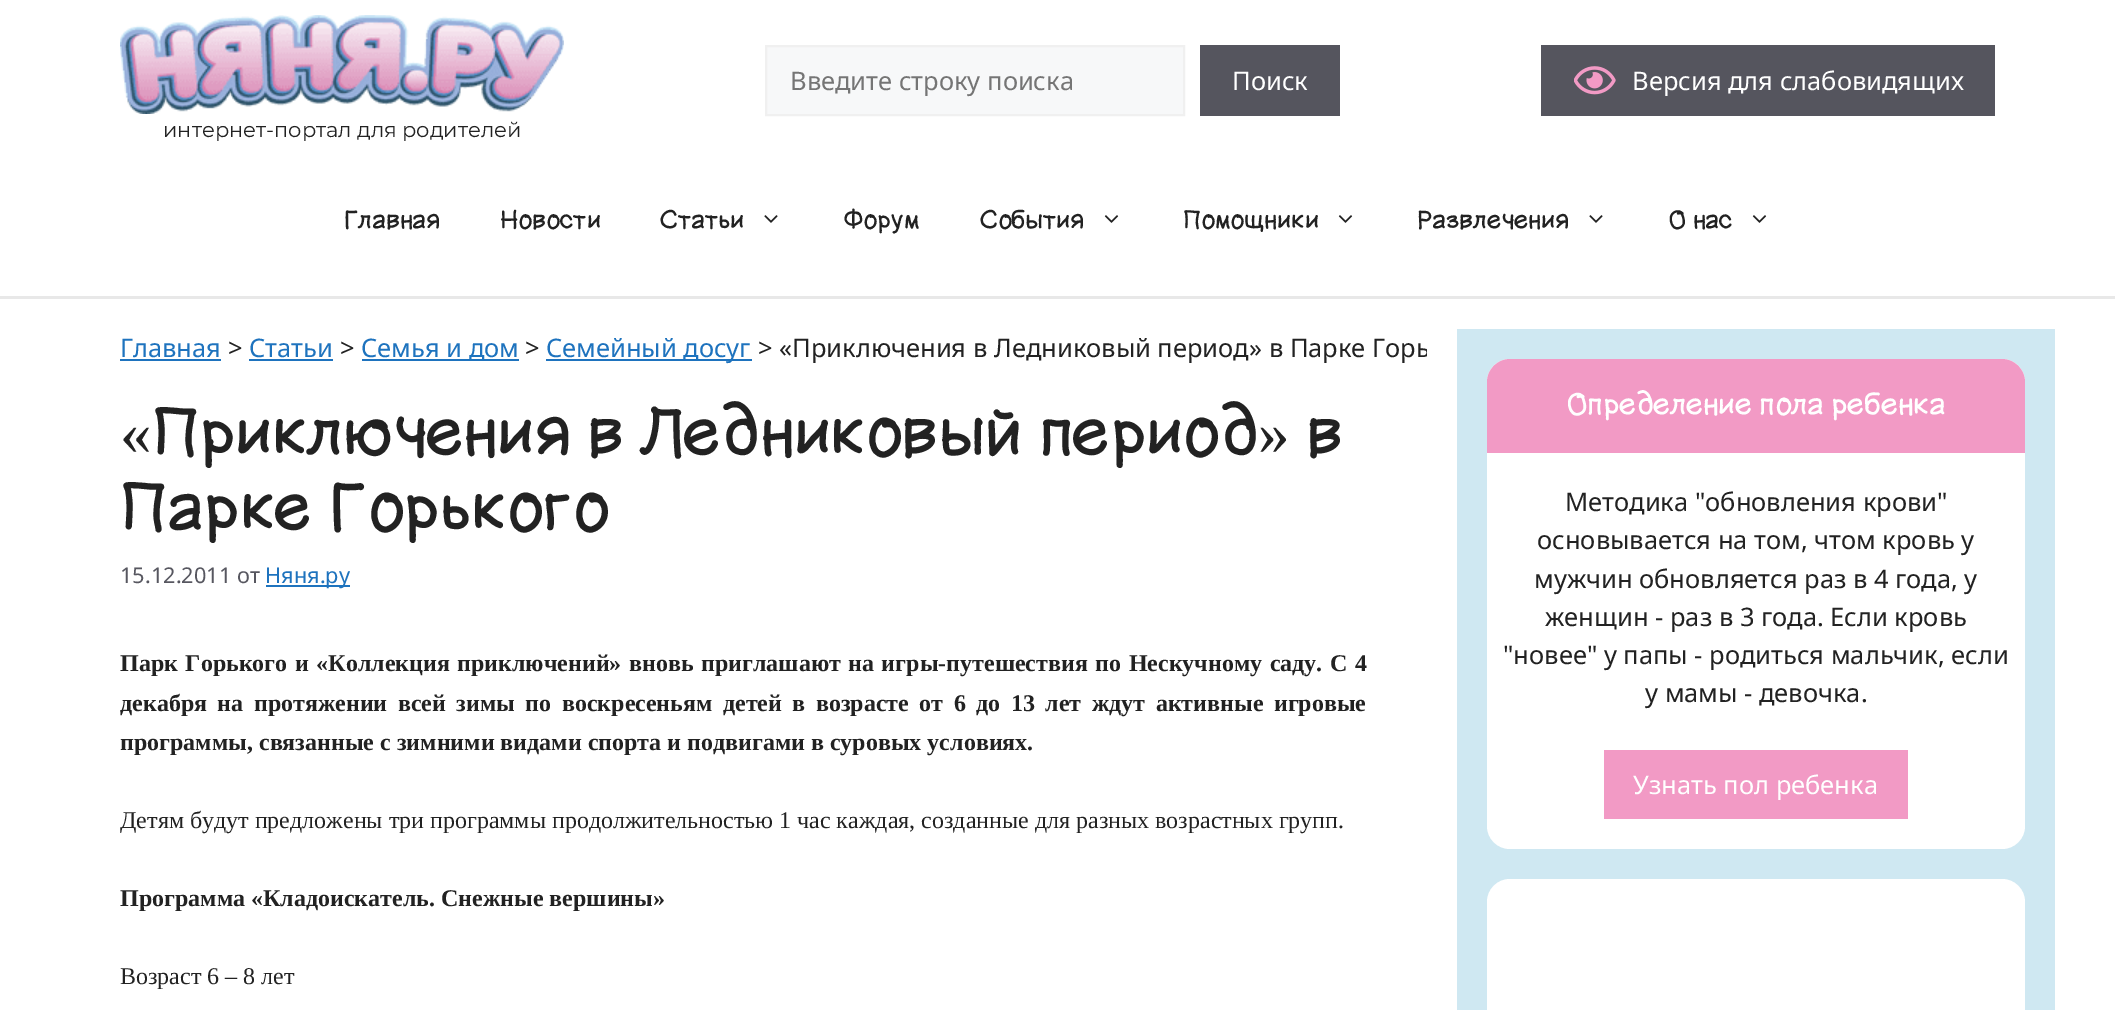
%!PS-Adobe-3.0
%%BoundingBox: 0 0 2115 1010
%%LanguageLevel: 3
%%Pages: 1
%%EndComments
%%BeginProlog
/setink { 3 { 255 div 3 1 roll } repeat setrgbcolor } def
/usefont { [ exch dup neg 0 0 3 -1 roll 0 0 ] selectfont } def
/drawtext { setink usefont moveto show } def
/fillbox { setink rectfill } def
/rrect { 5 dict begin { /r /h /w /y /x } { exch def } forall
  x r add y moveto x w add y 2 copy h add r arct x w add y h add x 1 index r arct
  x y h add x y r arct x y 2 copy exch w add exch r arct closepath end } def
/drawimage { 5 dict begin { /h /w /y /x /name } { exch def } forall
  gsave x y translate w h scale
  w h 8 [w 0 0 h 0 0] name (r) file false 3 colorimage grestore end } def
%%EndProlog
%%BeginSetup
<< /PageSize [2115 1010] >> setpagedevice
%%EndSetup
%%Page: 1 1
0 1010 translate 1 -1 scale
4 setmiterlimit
0 0 2115 1010 255 255 255 fillbox
247 248 249 setink
766 46 moveto 1184 46 lineto 1184 115 lineto 766 115 lineto closepath gsave fill grestore
240 240 240 setink
2 setlinewidth
stroke
(Введите строку поиска) 790 90 /NotoSans-Regular 25.5 117 117 117 drawtext
1200 45 140 71 85 85 94 fillbox
(Поиск) 1232 90 /NotoSans-Regular 25.5 255 255 255 drawtext
1541 45 454 71 85 85 94 fillbox
(assets/img1.rgb) 1574 66 42 29 drawimage
(Версия для слабовидящих) 1632 90 /NotoSans-Regular 25.5 255 255 255 drawtext
(assets/img2.rgb) 120 15 444 99 drawimage
(интернет-портал для родителей) 163 137 /Montserrat-Regular 21 34 34 34 drawtext
(Главная) 344 228 /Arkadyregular-Regular 24 34 34 34 drawtext
(Новости) 500 228 /Arkadyregular-Regular 24 34 34 34 drawtext
(Статьи) 660 228 /Arkadyregular-Regular 24 34 34 34 drawtext
(assets/img3.rgb) 764 215 14 8 drawimage
(Форум) 843 228 /Arkadyregular-Regular 24 34 34 34 drawtext
(События) 980 228 /Arkadyregular-Regular 24 34 34 34 drawtext
(assets/img4.rgb) 1104 215 15 8 drawimage
(Помощники) 1183 228 /Arkadyregular-Regular 24 34 34 34 drawtext
(assets/img4.rgb) 1338 215 15 8 drawimage
(Развлечения) 1417 228 /Arkadyregular-Regular 24 34 34 34 drawtext
(assets/img3.rgb) 1589 215 14 8 drawimage
(О нас) 1668 228 /Arkadyregular-Regular 24 34 34 34 drawtext
(assets/img4.rgb) 1752 215 15 8 drawimage
0 296 2115 3 232 232 232 fillbox
(Главная) 120 357 /NotoSans-Regular 25.5 30 115 190 drawtext
120 359 101 2 30 115 190 fillbox
(>) 228 357 /NotoSans-Regular 25.5 34 34 34 drawtext
(Статьи) 249 357 /NotoSans-Regular 25.5 30 115 190 drawtext
249 359 84 2 30 115 190 fillbox
(>) 340 357 /NotoSans-Regular 25.5 34 34 34 drawtext
362 359 157 2 30 115 190 fillbox
(Семья и дом) 361 357 /NotoSans-Regular 25.5 30 115 190 drawtext
(>) 525 357 /NotoSans-Regular 25.5 34 34 34 drawtext
546 359 206 2 30 115 190 fillbox
(Семейный досуг) 546 357 /NotoSans-Regular 25.5 30 115 190 drawtext
(>) 758 357 /NotoSans-Regular 25.5 34 34 34 drawtext
gsave
60 329 1367 39 rectclip
(«Приключения в Ледниковый период» в Парке Горь) 779 357 /NotoSans-Regular 25.5 34 34 34 drawtext
grestore
(«) 120 454 /LiberationSerif-Regular 63 34 34 34 drawtext
(Приключения в Ледниковый период) 152 454 /Arkadyregular-Regular 63 34 34 34 drawtext
(») 1258 454 /LiberationSerif-Regular 63 34 34 34 drawtext
(в) 1306 454 /Arkadyregular-Regular 63 34 34 34 drawtext
(Парке Горького) 120 529 /Arkadyregular-Regular 63 34 34 34 drawtext
(15.12.2011 от) 120 583 /NotoSans-Regular 21.75 87 87 96 drawtext
266 585 84 2 30 115 190 fillbox
(Няня.ру) 265 583 /NotoSans-Regular 21.75 30 115 190 drawtext
/LiberationSerif-Bold 24 usefont
34 34 34 setink
120 671 moveto 1.5 0 32 (Парк Горького и «Коллекция приключений» вновь приглашают на игры-путешествия по Нескучному саду. С 4) widthshow
120 711 moveto 4.5 0 32 (декабря на протяжении всей зимы по воскресеньям детей в возрасте от 6 до 13 лет ждут активные игровые) widthshow
(программы, связанные с зимними видами спорта и подвигами в суровых условиях.) 120 750 /LiberationSerif-Bold 24 34 34 34 drawtext
(Детям будут предложены три программы продолжительностью 1 час каждая, созданные для разных возрастных групп.) 120 828 /LiberationSerif-Regular 24 34 34 34 drawtext
(Программа «Кладоискатель. Снежные вершины») 120 906 /LiberationSerif-Bold 24 34 34 34 drawtext
(Возраст 6 – 8 лет) 120 984 /LiberationSerif-Regular 24 34 34 34 drawtext
1457 329 598 681 207 232 242 fillbox
255 255 255 setink
1487 359 538 490 23 rrect fill
242 154 197 setink
1510 359 moveto 2002 359 lineto 2014.5 359 2025 369.5 2025 382 curveto 2025 453 lineto 1487 453 lineto 1487 382 lineto 1487 369.5 1497.5 359 1510 359 curveto closepath fill
(Определение пола ребенка) 1566 414 /Arkadyregular-Regular 28.5 255 255 255 drawtext
(Методика "обновления крови") 1565 511 /NotoSans-Regular 25.5 34 34 34 drawtext
(основывается на том, чтом кровь у) 1537 549 /NotoSans-Regular 25.5 34 34 34 drawtext
(мужчин обновляется раз в 4 года, у) 1534 588 /NotoSans-Regular 25.5 34 34 34 drawtext
(женщин - раз в 3 года. Если кровь) 1545 626 /NotoSans-Regular 25.5 34 34 34 drawtext
("новее" у папы - родиться мальчик, если) 1503 664 /NotoSans-Regular 25.5 34 34 34 drawtext
(у мамы - девочка.) 1645 702 /NotoSans-Regular 25.5 34 34 34 drawtext
1604 750 304 69 242 154 197 fillbox
(Узнать пол ребенка) 1633 794 /NotoSans-Regular 25.5 255 255 255 drawtext
1487 879 538 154 23 rrect fill
showpage
%%EOF
